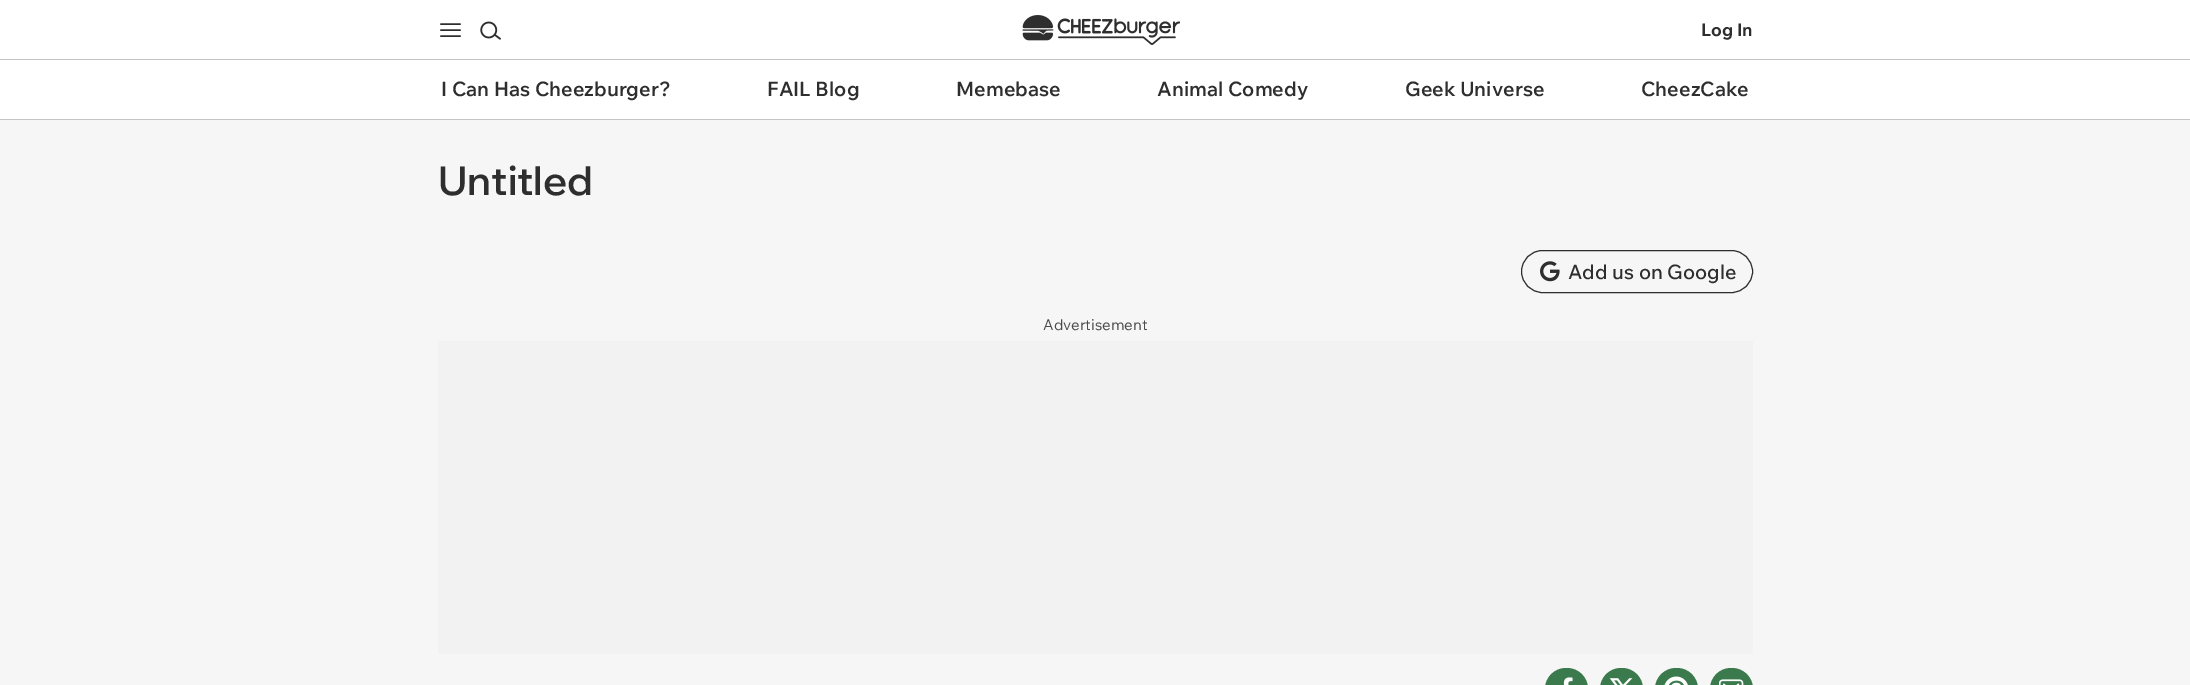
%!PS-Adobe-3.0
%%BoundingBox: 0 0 2190 685
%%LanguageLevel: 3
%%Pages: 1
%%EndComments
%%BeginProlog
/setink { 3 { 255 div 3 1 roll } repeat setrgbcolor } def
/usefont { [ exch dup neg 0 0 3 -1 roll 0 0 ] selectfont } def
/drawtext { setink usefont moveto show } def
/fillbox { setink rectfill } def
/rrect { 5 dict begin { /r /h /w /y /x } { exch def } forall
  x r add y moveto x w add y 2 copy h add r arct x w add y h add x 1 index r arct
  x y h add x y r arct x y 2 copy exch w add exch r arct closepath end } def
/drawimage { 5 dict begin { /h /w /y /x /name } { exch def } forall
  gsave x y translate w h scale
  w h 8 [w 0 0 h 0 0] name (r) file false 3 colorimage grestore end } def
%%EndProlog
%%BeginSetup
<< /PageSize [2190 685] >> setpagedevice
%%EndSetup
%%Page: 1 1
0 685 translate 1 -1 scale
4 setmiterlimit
0 0 2190 685 246 246 246 fillbox
0 0 2190 59 255 255 255 fillbox
0 59 2190 1 196 196 196 fillbox
46 46 46 setink
1.6 setlinewidth
1 setlinecap
1 setlinejoin
441 24 moveto 460 24 lineto 441 30 moveto 460 30 lineto 441 36 moveto 460 36 lineto stroke
(assets/img1.rgb) 480 21 21 19 drawimage
(assets/img2.rgb) 1022 15 159 30 drawimage
(Log In) 1701 36 /WixMadeforText-Bold 17.5 46 46 46 drawtext
0 60 2190 59 255 255 255 fillbox
0 119 2190 1 196 196 196 fillbox
(I Can Has Cheezburger?) 441 96 /WixMadeforText-SemiBold 20 46 46 46 drawtext
(FAIL Blog) 767 96 /WixMadeforText-SemiBold 20 46 46 46 drawtext
(Memebase) 956 96 /WixMadeforText-SemiBold 20 46 46 46 drawtext
(Animal Comedy) 1157 96 /WixMadeforText-SemiBold 20 46 46 46 drawtext
(Geek Universe) 1405 96 /WixMadeforText-SemiBold 20 46 46 46 drawtext
(CheezCake) 1641 96 /WixMadeforText-SemiBold 20 46 46 46 drawtext
(Untitled) 438 195 /WixMadeforDisplay-SemiBold 40 46 46 46 drawtext
1 setlinewidth
0 setlinecap
0 setlinejoin
1521.5 250.5 231 42 21 rrect stroke
(assets/img3.rgb) 1540 261 20 21 drawimage
(Add us on Google) 1568 279 /WixMadeforText-Medium 20 46 46 46 drawtext
(Advertisement) 1043 330 /WixMadeforText-Regular 15 74 74 74 drawtext
438 341 1315 313 242 242 242 fillbox
59 122 77 setink
1545 668 43 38 21 rrect fill
(assets/img4.rgb) 1563 677 10 8 drawimage
1600 668 43 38 21 rrect fill
(assets/img5.rgb) 1609 678 24 7 drawimage
1655 668 43 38 21 rrect fill
(assets/img6.rgb) 1664 676 24 9 drawimage
1710 668 43 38 21 rrect fill
(assets/img7.rgb) 1719 679 25 6 drawimage
showpage
%%EOF
